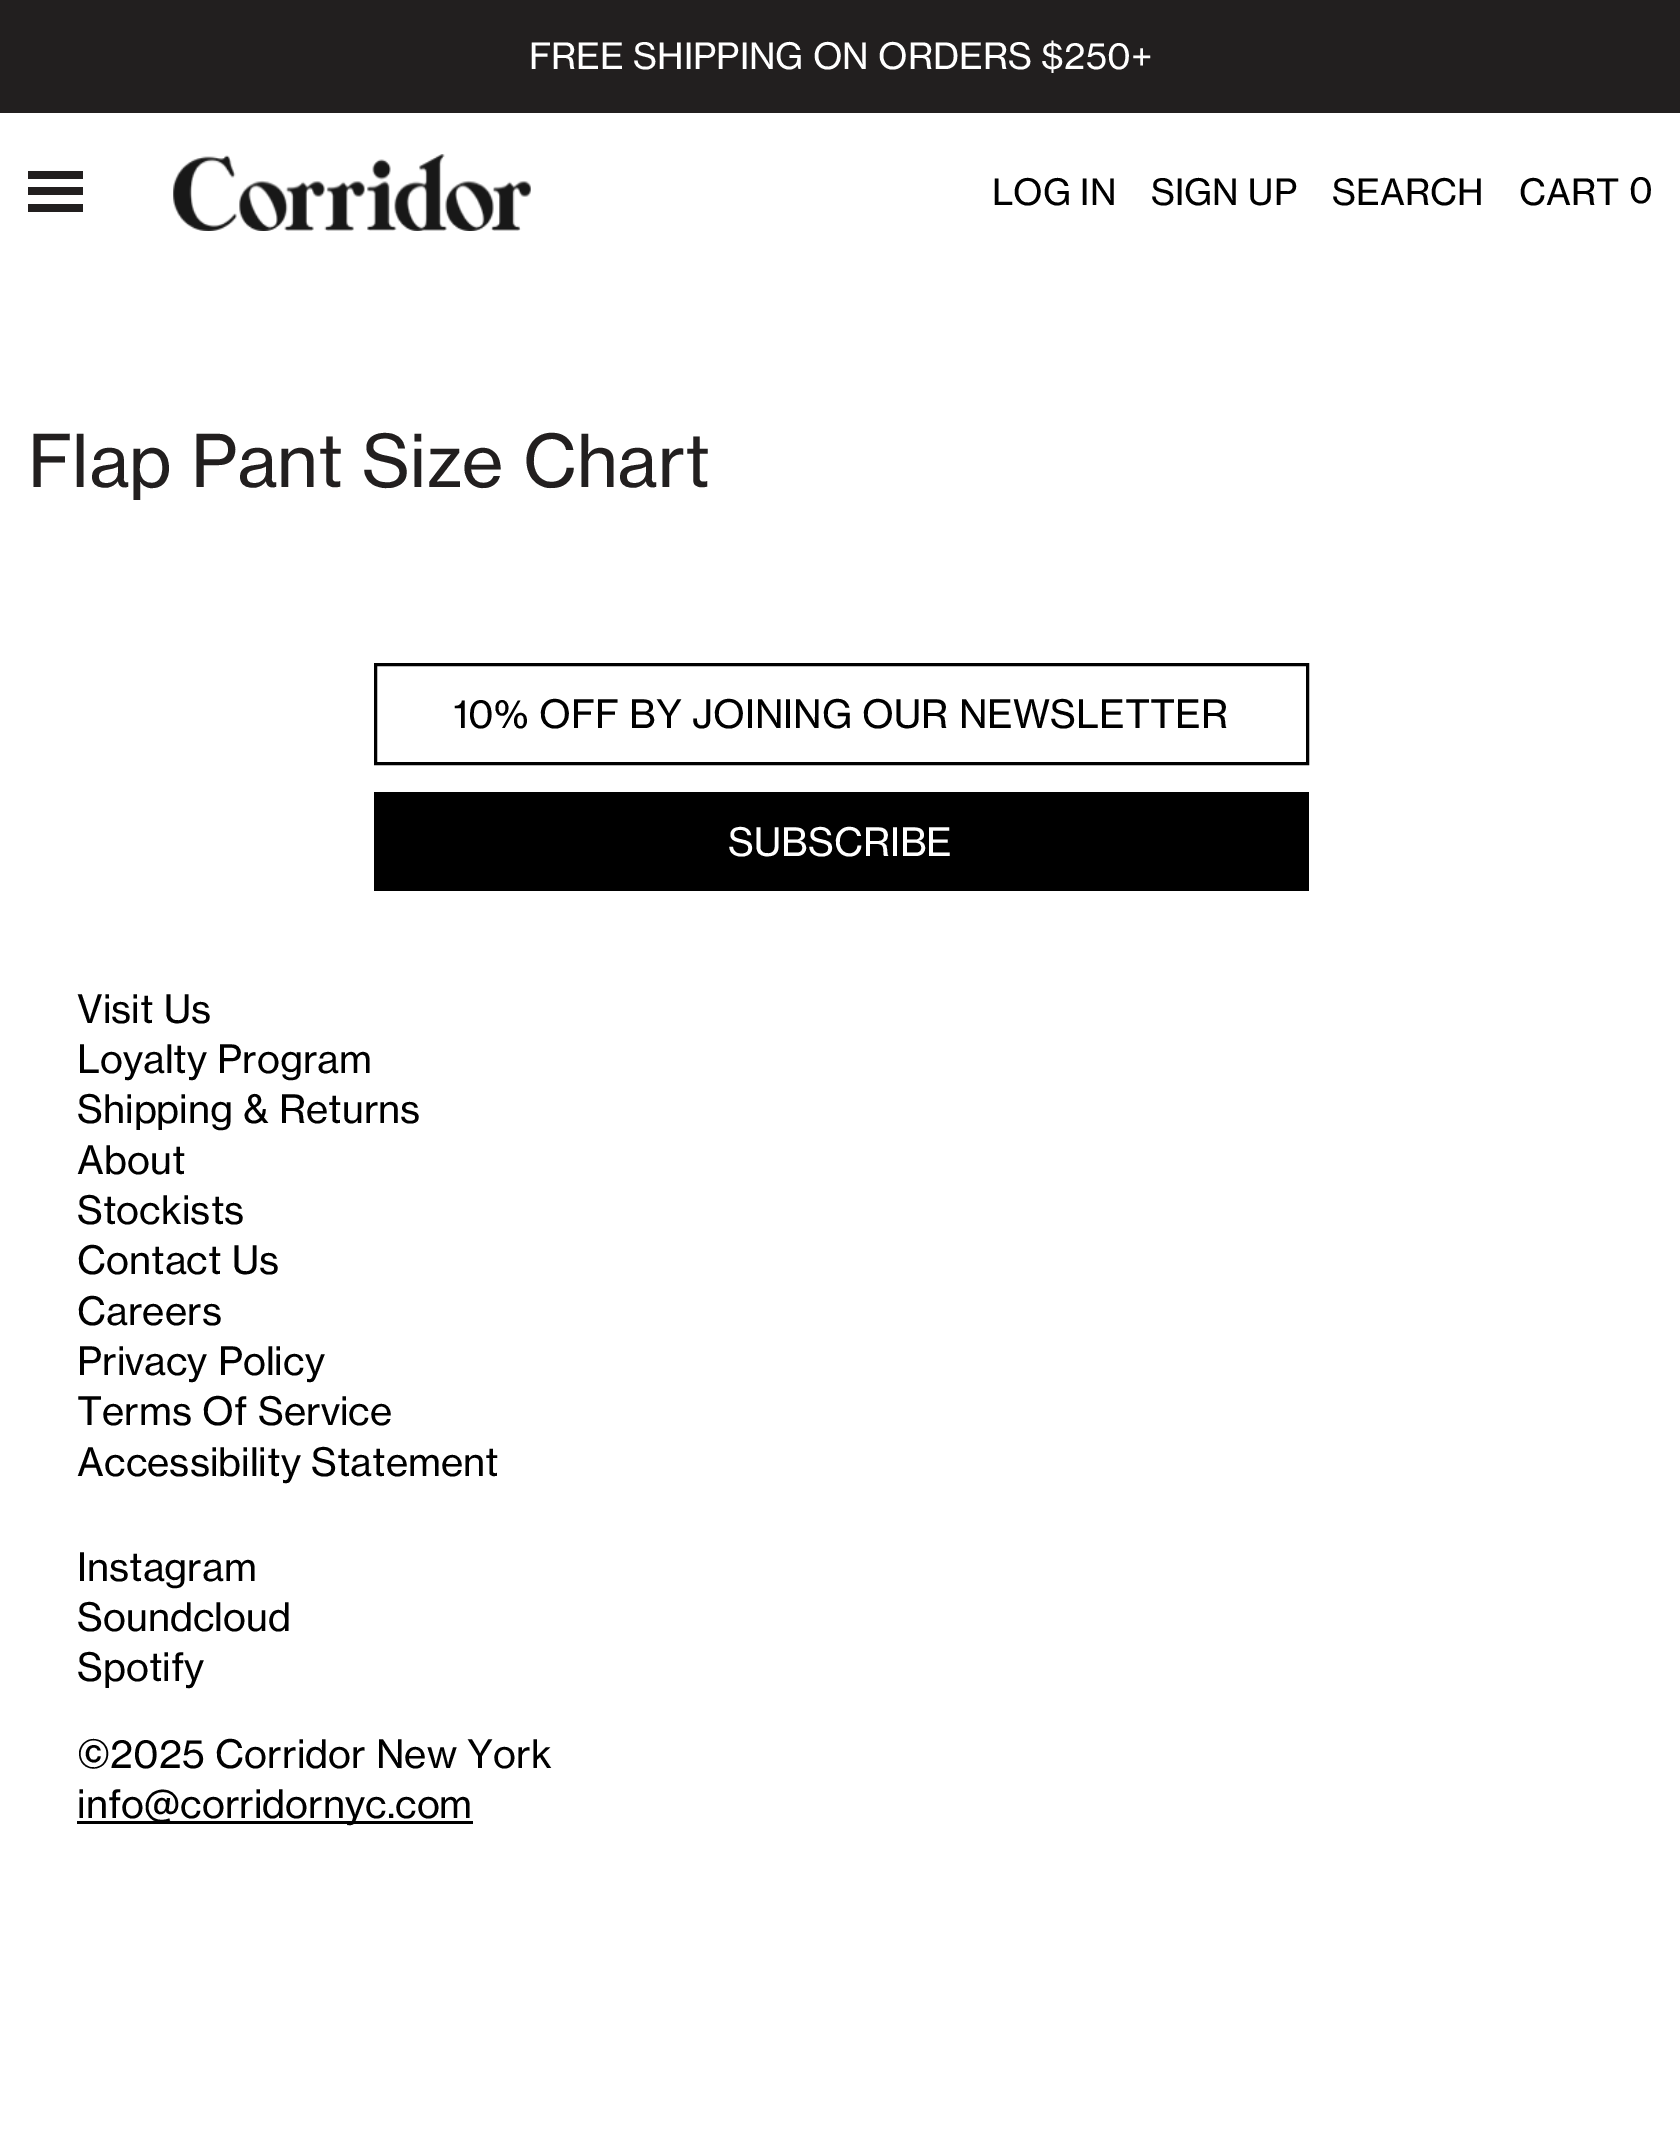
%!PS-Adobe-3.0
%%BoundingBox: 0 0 1680 2144
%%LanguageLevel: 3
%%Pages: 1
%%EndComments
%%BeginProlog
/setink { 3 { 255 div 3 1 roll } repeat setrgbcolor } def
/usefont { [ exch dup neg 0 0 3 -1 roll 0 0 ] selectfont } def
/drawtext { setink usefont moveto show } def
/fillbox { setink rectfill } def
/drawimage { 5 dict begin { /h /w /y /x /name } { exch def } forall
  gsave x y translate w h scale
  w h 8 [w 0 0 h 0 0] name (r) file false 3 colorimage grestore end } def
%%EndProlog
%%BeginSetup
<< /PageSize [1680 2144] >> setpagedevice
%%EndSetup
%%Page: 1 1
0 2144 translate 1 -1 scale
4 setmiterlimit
0 0 1680 2144 255 255 255 fillbox
0 0 1680 113 34 31 31 fillbox
(FREE SHIPPING ON ORDERS $250+) 529 69 /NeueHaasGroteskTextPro-Regular 35.75 255 255 255 drawtext
28 171 55 8 34 31 31 fillbox
28 187 55 8 34 31 31 fillbox
28 204 55 8 34 31 31 fillbox
(assets/img1.rgb) 173 154 358 77 drawimage
0 0 0 setink
992 205 moveto 0.05 0 (LOG IN) ashow
1151 205 moveto 0.05 0 (SIGN UP) ashow
1332 205 moveto 0.05 0 (SEARCH) ashow
1519 205 moveto 0.05 0 (CART) ashow
1629 203 moveto 0.05 0 (0) ashow
(Flap Pant Size Chart) 28 487 /NeueHaasGroteskTextPro-Regular 71.5 34 31 31 drawtext
0 0 0 setink
3 setlinewidth
375.5 664.5 932 99 rectstroke
/NeueHaasGroteskTextPro-Regular 38.5 usefont
453 728 moveto 0.05 0 (10% OFF BY JOINING OUR NEWSLETTER) ashow
374 792 935 99 0 0 0 fillbox
255 255 255 setink
728 856 moveto 0.05 0 (SUBSCRIBE) ashow
0 0 0 setink
77 1023 moveto 0.05 0 (Visit Us) ashow
77 1073 moveto 0.05 0 (Loyalty Program) ashow
77 1123 moveto 0.05 0 (Shipping & Returns) ashow
77 1174 moveto 0.05 0 (About) ashow
77 1224 moveto 0.05 0 (Stockists) ashow
77 1274 moveto 0.05 0 (Contact Us) ashow
77 1325 moveto 0.05 0 (Careers) ashow
77 1375 moveto 0.05 0 (Privacy Policy) ashow
77 1425 moveto 0.05 0 (Terms Of Service) ashow
77 1476 moveto 0.05 0 (Accessibility Statement) ashow
77 1581 moveto 0.05 0 (Instagram) ashow
77 1631 moveto 0.05 0 (Soundcloud) ashow
77 1681 moveto 0.05 0 (Spotify) ashow
77 1768 moveto 0.05 0 (©2025 Corridor New York) ashow
77 1821 396 3 0 0 0 fillbox
77 1818 moveto 0.05 0 (info@corridornyc.com) ashow
showpage
%%EOF
